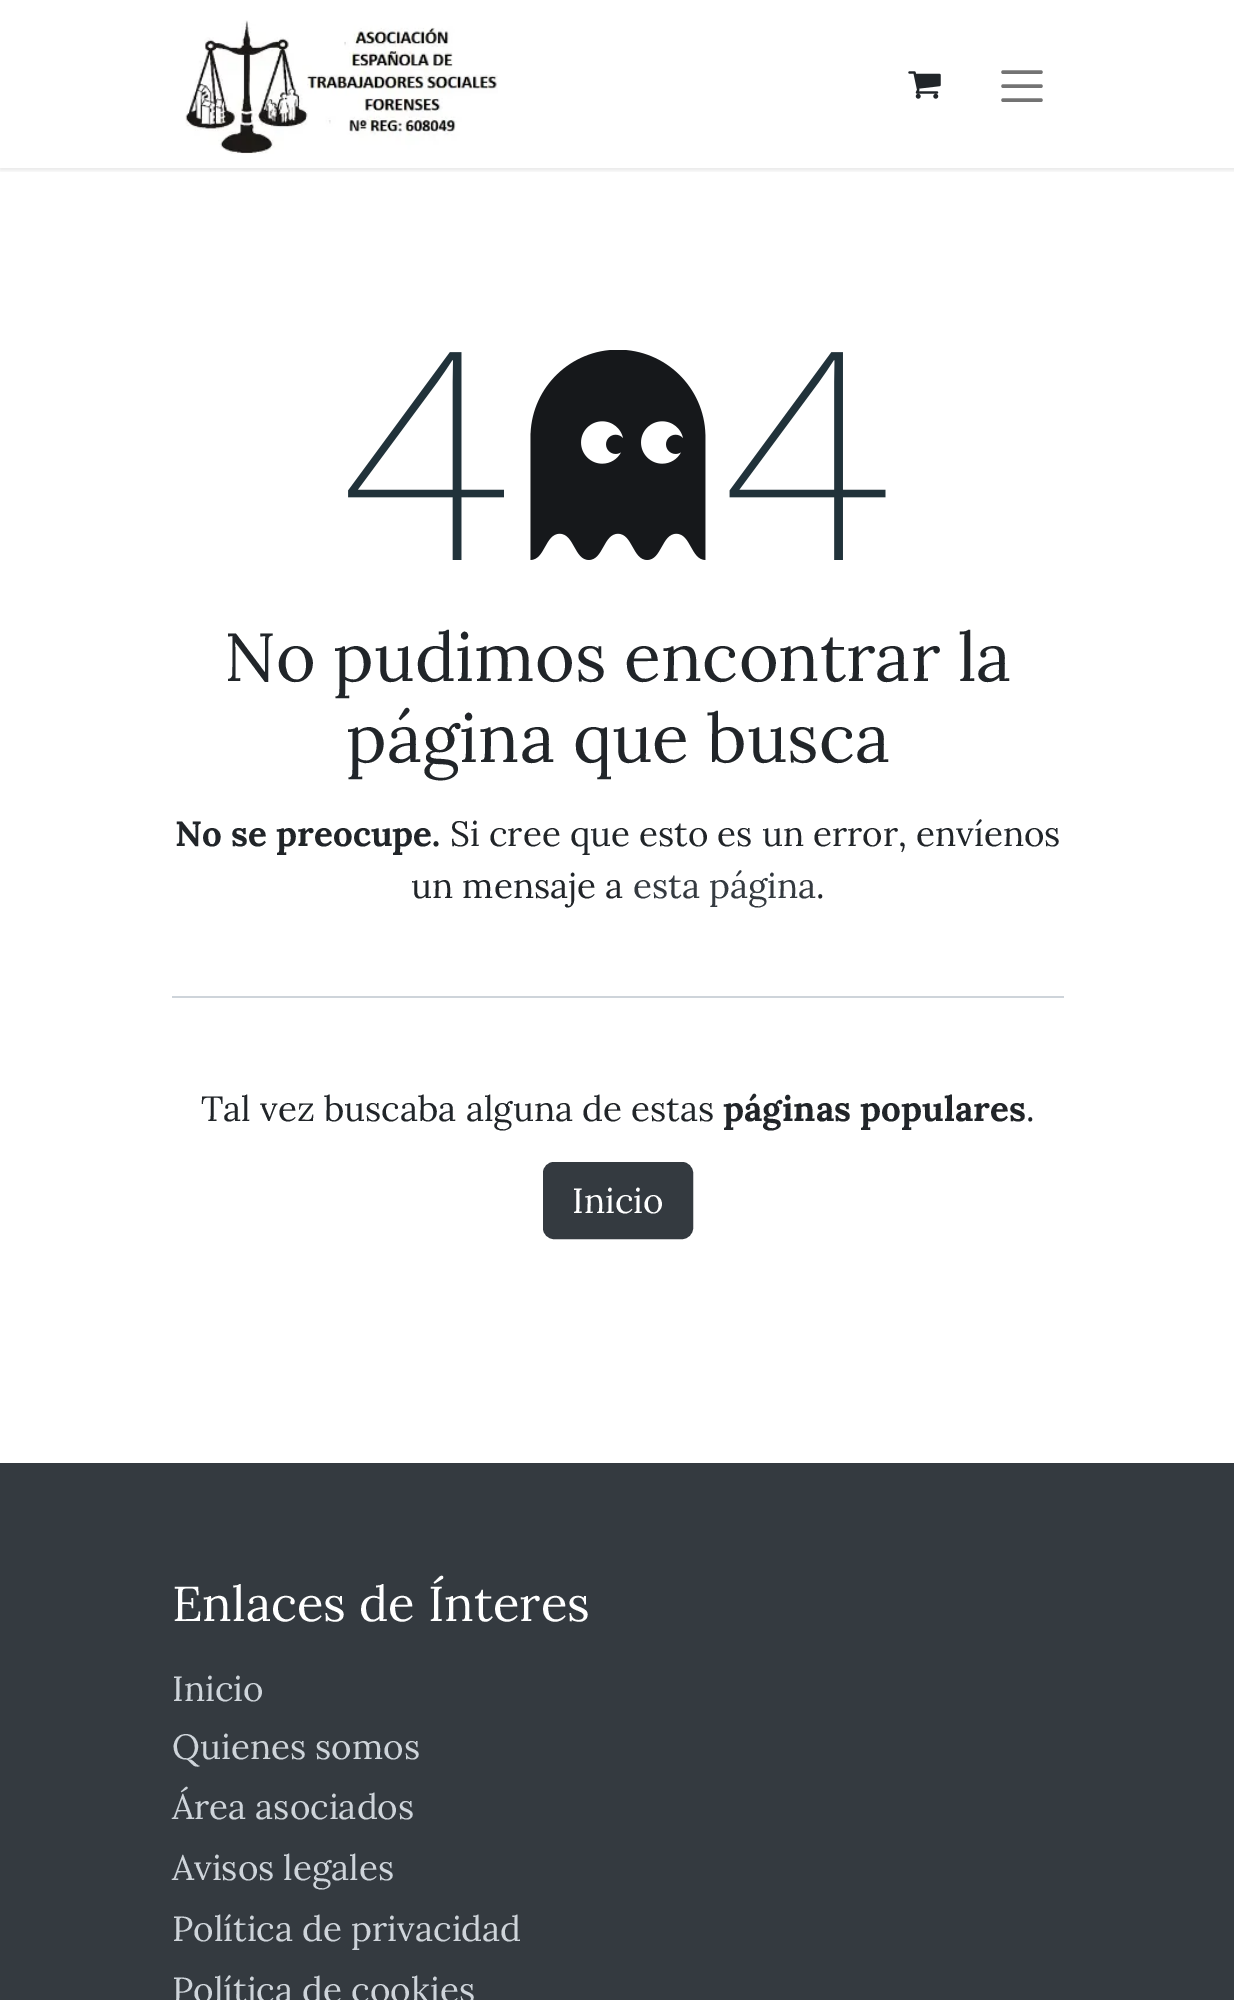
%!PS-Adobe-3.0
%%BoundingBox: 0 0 1234 2000
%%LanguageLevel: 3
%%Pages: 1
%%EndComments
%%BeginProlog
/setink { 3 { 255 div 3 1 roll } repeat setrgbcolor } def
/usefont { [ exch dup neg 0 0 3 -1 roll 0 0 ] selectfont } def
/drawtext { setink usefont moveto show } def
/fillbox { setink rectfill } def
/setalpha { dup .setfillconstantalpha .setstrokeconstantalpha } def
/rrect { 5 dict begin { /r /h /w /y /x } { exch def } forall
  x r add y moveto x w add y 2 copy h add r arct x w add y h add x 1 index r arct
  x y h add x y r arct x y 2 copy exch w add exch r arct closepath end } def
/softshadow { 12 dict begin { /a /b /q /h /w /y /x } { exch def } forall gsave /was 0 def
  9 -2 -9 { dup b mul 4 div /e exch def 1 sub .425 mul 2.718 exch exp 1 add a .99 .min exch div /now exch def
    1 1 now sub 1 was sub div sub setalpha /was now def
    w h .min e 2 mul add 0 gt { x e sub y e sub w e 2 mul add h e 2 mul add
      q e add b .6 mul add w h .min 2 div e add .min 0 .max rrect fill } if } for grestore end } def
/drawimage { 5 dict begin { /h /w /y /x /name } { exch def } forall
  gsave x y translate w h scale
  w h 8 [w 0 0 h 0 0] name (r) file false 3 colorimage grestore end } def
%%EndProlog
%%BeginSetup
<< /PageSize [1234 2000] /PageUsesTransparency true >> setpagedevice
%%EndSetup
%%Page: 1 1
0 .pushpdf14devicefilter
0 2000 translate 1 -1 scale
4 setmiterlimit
0 0 1234 2000 255 255 255 fillbox
gsave
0 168 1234 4 rectclip
0 0 0 setink
0 2 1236 168 0 2.5 0.1 softshadow
grestore
(assets/img1.rgb) 185 20 313 134 drawimage
(assets/img2.rgb) 908 71 33 28 drawimage
115 115 115 setink
3.5 setlinewidth
1 setlinecap
1003 72 moveto 1041 72 lineto 1003 86 moveto 1041 86 lineto 1003 100 moveto 1041 100 lineto stroke
(assets/img3.rgb) 348 350 538 210 drawimage
(No pudimos encontrar la) 224 681 /Lora-Regular 68 33 37 41 drawtext
(página que busca) 346 762 /Lora-Regular 68 33 37 41 drawtext
(No se preocupe.) 175 846 /Lora-Bold 35 33 37 41 drawtext
(Si cree que esto es un error, envíenos) 450 846 /Lora-Regular 35 33 37 41 drawtext
(un mensaje a) 411 898 /Lora-Regular 35 33 37 41 drawtext
(esta página) 633 898 /Lora-Regular 35 52 58 64 drawtext
(.) 816 898 /Lora-Regular 35 33 37 41 drawtext
172 996 892 2 206 212 218 fillbox
(Tal vez buscaba alguna de estas) 201 1121 /Lora-Regular 35 33 37 41 drawtext
(páginas populares) 723 1121 /Lora-Bold 35 33 37 41 drawtext
(.) 1026 1121 /Lora-Regular 35 33 37 41 drawtext
52 58 64 setink
544 1163 148 75 10 rrect gsave fill grestore
2 setlinewidth
0 setlinecap
stroke
(Inicio) 572 1213 /Lora-Regular 35 255 255 255 drawtext
0 1463 1234 537 52 58 64 fillbox
(Enlaces de Ínteres) 172 1621 /Lora-Regular 49 255 255 255 drawtext
(Inicio) 172 1701 /Lora-Regular 35 206 212 218 drawtext
(Quienes somos) 172 1759 /Lora-Regular 35 206 212 218 drawtext
(Área asociados) 172 1819 /Lora-Regular 35 206 212 218 drawtext
(Avisos legales) 172 1880 /Lora-Regular 35 206 212 218 drawtext
(Política de privacidad) 172 1941 /Lora-Regular 35 206 212 218 drawtext
(Política de cookies) 172 2002 /Lora-Regular 35 206 212 218 drawtext
.poppdf14devicefilter showpage
%%EOF
